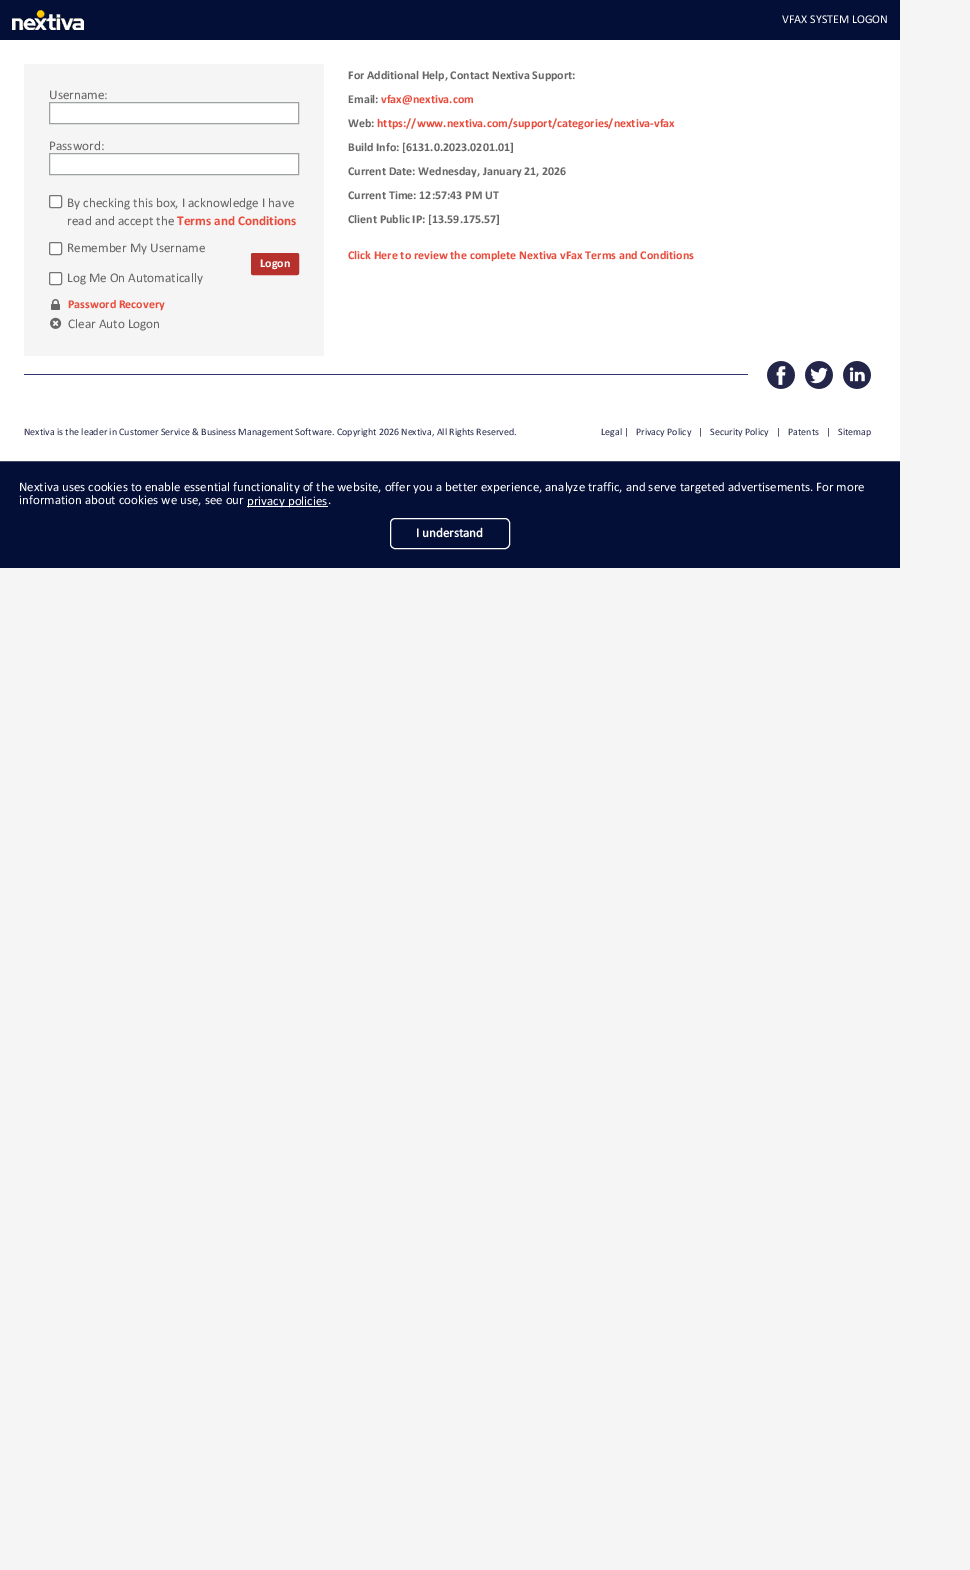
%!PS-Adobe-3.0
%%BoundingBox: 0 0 970 1570
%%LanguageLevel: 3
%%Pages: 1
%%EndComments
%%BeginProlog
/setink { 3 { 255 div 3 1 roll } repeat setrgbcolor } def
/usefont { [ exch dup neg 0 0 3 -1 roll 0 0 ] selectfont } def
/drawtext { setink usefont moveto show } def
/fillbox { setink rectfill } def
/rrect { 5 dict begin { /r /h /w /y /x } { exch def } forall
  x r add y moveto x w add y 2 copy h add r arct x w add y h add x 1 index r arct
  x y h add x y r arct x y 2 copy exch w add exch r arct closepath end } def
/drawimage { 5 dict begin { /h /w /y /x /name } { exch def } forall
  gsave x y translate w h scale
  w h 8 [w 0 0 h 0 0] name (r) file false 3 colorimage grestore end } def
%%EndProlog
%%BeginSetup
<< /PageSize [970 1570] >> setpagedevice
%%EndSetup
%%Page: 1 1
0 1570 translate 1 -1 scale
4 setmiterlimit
0 0 970 1570 245 245 245 fillbox
0 0 900 40 4 15 56 fillbox
(assets/img1.rgb) 12 10 72 20 drawimage
(VFAX SYSTEM LOGON) 782 23 /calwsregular-Regular 12 255 255 255 drawtext
0 40 900 421 255 255 255 fillbox
24 64 300 292 245 245 245 fillbox
(Username:) 49 99 /calwsregular-Regular 13.25 102 102 102 drawtext
255 255 255 setink
49.5 102.5 moveto 298.5 102.5 lineto 298.5 123.5 lineto 49.5 123.5 lineto closepath gsave fill grestore
158 162 162 setink
stroke
(Password:) 49 150 /calwsregular-Regular 13.25 102 102 102 drawtext
255 255 255 setink
49.5 153.5 moveto 298.5 153.5 lineto 298.5 174.5 lineto 49.5 174.5 lineto closepath gsave fill grestore
158 162 162 setink
stroke
255 255 255 setink
49.5 195.5 12 12 1.5 rrect gsave fill grestore
118 118 118 setink
stroke
(By checking this box, I acknowledge I have) 67 207 /calwsregular-Regular 13.25 102 102 102 drawtext
(read and accept the) 67 225 /calwsregular-Regular 13.25 102 102 102 drawtext
(Terms and Conditions) 177 225 /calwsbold-Bold 13.25 231 76 60 drawtext
255 255 255 setink
49.5 242.5 12 12 1.5 rrect gsave fill grestore
118 118 118 setink
stroke
(Remember My Username) 67 252 /calwsregular-Regular 13.25 102 102 102 drawtext
255 255 255 setink
49.5 272.5 12 12 1.5 rrect gsave fill grestore
118 118 118 setink
stroke
(Log Me On Automatically) 67 282 /calwsregular-Regular 13.25 102 102 102 drawtext
(assets/img2.rgb) 51 299 9 11 drawimage
(Password Recovery) 68 308 /calwsbold-Bold 12 231 76 60 drawtext
(assets/img3.rgb) 50 317 12 12 drawimage
(Clear Auto Logon) 68 328 /calwsregular-Regular 13.25 102 102 102 drawtext
183 49 44 setink
251.5 253.5 47 21 1.5 rrect gsave fill grestore
stroke
(Logon) 260 267 /calwsbold-Bold 12 255 255 255 drawtext
(For Additional Help, Contact Nextiva Support:) 348 79 /calwsbold-Bold 12 102 102 102 drawtext
(Email:) 348 103 /calwsbold-Bold 12 102 102 102 drawtext
(vfax@nextiva.com) 381 103 /calwsbold-Bold 12 231 76 60 drawtext
(Web:) 348 127 /calwsbold-Bold 12 102 102 102 drawtext
(https://www.nextiva.com/support/categories/nextiva-vfax) 377 127 /calwsbold-Bold 12 231 76 60 drawtext
(Build Info: [6131.0.2023.0201.01]) 348 151 /calwsbold-Bold 12 102 102 102 drawtext
(Current Date: Wednesday, January 21, 2026) 348 175 /calwsbold-Bold 12 102 102 102 drawtext
(Current Time: 12:57:43 PM UT) 348 199 /calwsbold-Bold 12 102 102 102 drawtext
(Client Public IP: [13.59.175.57]) 348 223 /calwsbold-Bold 12 102 102 102 drawtext
(Click Here to review the complete Nextiva vFax Terms and Conditions) 348 259 /calwsbold-Bold 12 231 76 60 drawtext
24 374 724 1 49 54 114 fillbox
(assets/img4.rgb) 767 361 28 28 drawimage
(assets/img5.rgb) 805 361 28 28 drawimage
(assets/img6.rgb) 843 361 28 28 drawimage
(Nextiva is the leader in Customer Service & Business Management Software. Copyright 2026 Nextiva, All Rights Reserved.) 24 435 /calwsregular-Regular 10 35 38 73 drawtext
(Legal |) 601 435 /calwsregular-Regular 10 35 38 73 drawtext
(Privacy Policy) 636 435 /calwsregular-Regular 10 35 38 73 drawtext
(|) 698 435 /calwsregular-Regular 10 35 38 73 drawtext
(Security Policy) 710 435 /calwsregular-Regular 10 35 38 73 drawtext
(|) 776 435 /calwsregular-Regular 10 35 38 73 drawtext
(Patents) 788 435 /calwsregular-Regular 10 35 38 73 drawtext
(|) 826 435 /calwsregular-Regular 10 35 38 73 drawtext
(Sitemap) 838 435 /calwsregular-Regular 10 35 38 73 drawtext
0 462 900 106 4 15 56 fillbox
0 461 900 1 67 75 106 fillbox
(Nextiva uses cookies to enable essential functionality of the website, offer you a better experience, analyze traffic, and serve targeted advertisements. For more) 19 491 /calwsregular-Regular 13 255 255 255 drawtext
(information about cookies we use, see our) 19 504 /calwsregular-Regular 13 255 255 255 drawtext
247 506 81 1 255 255 255 fillbox
(privacy policies) 247 505 /calwsregular-Regular 13 255 255 255 drawtext
(.) 328 504 /calwsregular-Regular 13 255 255 255 drawtext
390.5 518.5 119 30 4.5 rrect stroke
(I understand) 416 537 /calwsregular-Bold 13 255 255 255 drawtext
showpage
%%EOF
